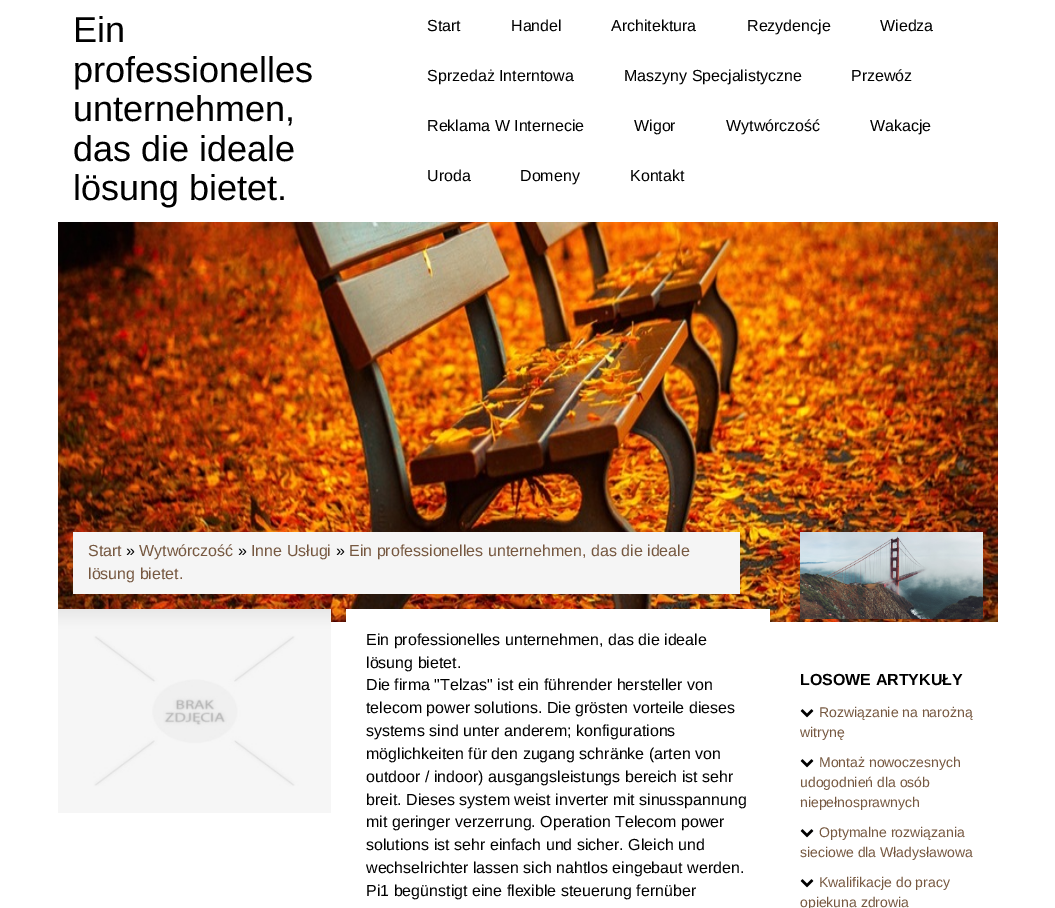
%!PS-Adobe-3.0
%%BoundingBox: 0 0 1055 908
%%LanguageLevel: 3
%%Pages: 1
%%EndComments
%%BeginProlog
/setink { 3 { 255 div 3 1 roll } repeat setrgbcolor } def
/usefont { [ exch dup neg 0 0 3 -1 roll 0 0 ] selectfont } def
/drawtext { setink usefont moveto show } def
/fillbox { setink rectfill } def
/drawimage { 5 dict begin { /h /w /y /x /name } { exch def } forall
  gsave x y translate w h scale
  w h 8 [w 0 0 h 0 0] name (r) file false 3 colorimage grestore end } def
%%EndProlog
%%BeginSetup
<< /PageSize [1055 908] >> setpagedevice
%%EndSetup
%%Page: 1 1
0 908 translate 1 -1 scale
4 setmiterlimit
0 0 1055 908 255 255 255 fillbox
(Ein) 73 42 /LiberationSans-Regular 36 0 0 0 drawtext
(professionelles) 73 82 /LiberationSans-Regular 36 0 0 0 drawtext
(unternehmen,) 73 121 /LiberationSans-Regular 36 0 0 0 drawtext
(das die ideale) 73 161 /LiberationSans-Regular 36 0 0 0 drawtext
(lösung bietet.) 73 200 /LiberationSans-Regular 36 0 0 0 drawtext
(Start) 427 31 /LiberationSans-Regular 16 0 0 0 drawtext
(Handel) 511 31 /LiberationSans-Regular 16 0 0 0 drawtext
(Architektura) 611 31 /LiberationSans-Regular 16 0 0 0 drawtext
(Rezydencje) 747 31 /LiberationSans-Regular 16 0 0 0 drawtext
(Wiedza) 880 31 /LiberationSans-Regular 16 0 0 0 drawtext
(Sprzedaż Interntowa) 427 81 /LiberationSans-Regular 16 0 0 0 drawtext
(Maszyny Specjalistyczne) 624 81 /LiberationSans-Regular 16 0 0 0 drawtext
(Przewóz) 851 81 /LiberationSans-Regular 16 0 0 0 drawtext
(Reklama W Internecie) 427 131 /LiberationSans-Regular 16 0 0 0 drawtext
(Wigor) 634 131 /LiberationSans-Regular 16 0 0 0 drawtext
(Wytwórczość) 726 131 /LiberationSans-Regular 16 0 0 0 drawtext
(Wakacje) 870 131 /LiberationSans-Regular 16 0 0 0 drawtext
(Uroda) 427 181 /LiberationSans-Regular 16 0 0 0 drawtext
(Domeny) 520 181 /LiberationSans-Regular 16 0 0 0 drawtext
(Kontakt) 630 181 /LiberationSans-Regular 16 0 0 0 drawtext
(assets/img1.rgb) 58 222 940 400 drawimage
73 532 667 62 245 245 245 fillbox
(Start) 88 556 /LiberationSans-Regular 16 118 88 64 drawtext
(») 126 556 /LiberationSans-Regular 16 0 0 0 drawtext
(Wytwórczość) 139 556 /LiberationSans-Regular 16 118 88 64 drawtext
(») 238 556 /LiberationSans-Regular 16 0 0 0 drawtext
(Inne Usługi) 251 556 /LiberationSans-Regular 16 118 88 64 drawtext
(») 336 556 /LiberationSans-Regular 16 0 0 0 drawtext
(Ein professionelles unternehmen, das die ideale) 349 556 /LiberationSans-Regular 16 118 88 64 drawtext
(lösung bietet.) 88 579 /LiberationSans-Regular 16 118 88 64 drawtext
(assets/img2.rgb) 58 609 273 204 drawimage
346 609 424 13 255 255 255 fillbox
(Ein professionelles unternehmen, das die ideale) 366 645 /LiberationSans-Regular 16 0 0 0 drawtext
(lösung bietet.) 366 668 /LiberationSans-Regular 16 0 0 0 drawtext
(Die firma "Telzas" ist ein führender hersteller von) 366 690 /LiberationSans-Regular 16 0 0 0 drawtext
(telecom power solutions. Die grösten vorteile dieses) 366 713 /LiberationSans-Regular 16 0 0 0 drawtext
(systems sind unter anderem; konfigurations) 366 736 /LiberationSans-Regular 16 0 0 0 drawtext
(möglichkeiten für den zugang schränke \(arten von) 366 759 /LiberationSans-Regular 16 0 0 0 drawtext
(outdoor / indoor\) ausgangsleistungs bereich ist sehr) 366 782 /LiberationSans-Regular 16 0 0 0 drawtext
(breit. Dieses system weist inverter mit sinusspannung) 366 805 /LiberationSans-Regular 16 0 0 0 drawtext
(mit geringer verzerrung. Operation Telecom power) 366 827 /LiberationSans-Regular 16 0 0 0 drawtext
(solutions ist sehr einfach und sicher. Gleich und) 366 850 /LiberationSans-Regular 16 0 0 0 drawtext
(wechselrichter lassen sich nahtlos eingebaut werden.) 366 873 /LiberationSans-Regular 16 0 0 0 drawtext
(Pi1 begünstigt eine flexible steuerung fernüber) 366 896 /LiberationSans-Regular 16 0 0 0 drawtext
(assets/img3.rgb) 800 532 183 87 drawimage
(LOSOWE ARTYKUŁY) 800 685 /LiberationSans-Bold 16 0 0 0 drawtext
(assets/img4.rgb) 800 709 14 9 drawimage
(Rozwiązanie na narożną) 819 717 /LiberationSans-Regular 14 118 88 64 drawtext
(witrynę) 800 737 /LiberationSans-Regular 14 118 88 64 drawtext
(assets/img4.rgb) 800 759 14 9 drawimage
(Montaż nowoczesnych) 819 767 /LiberationSans-Regular 14 118 88 64 drawtext
(udogodnień dla osób) 800 787 /LiberationSans-Regular 14 118 88 64 drawtext
(niepełnosprawnych) 800 807 /LiberationSans-Regular 14 118 88 64 drawtext
(assets/img4.rgb) 800 829 14 9 drawimage
(Optymalne rozwiązania) 819 837 /LiberationSans-Regular 14 118 88 64 drawtext
(sieciowe dla Władysławowa) 800 857 /LiberationSans-Regular 14 118 88 64 drawtext
(assets/img4.rgb) 800 879 14 9 drawimage
(Kwalifikacje do pracy) 819 887 /LiberationSans-Regular 14 118 88 64 drawtext
(opiekuna zdrowia) 800 907 /LiberationSans-Regular 14 118 88 64 drawtext
showpage
%%EOF
